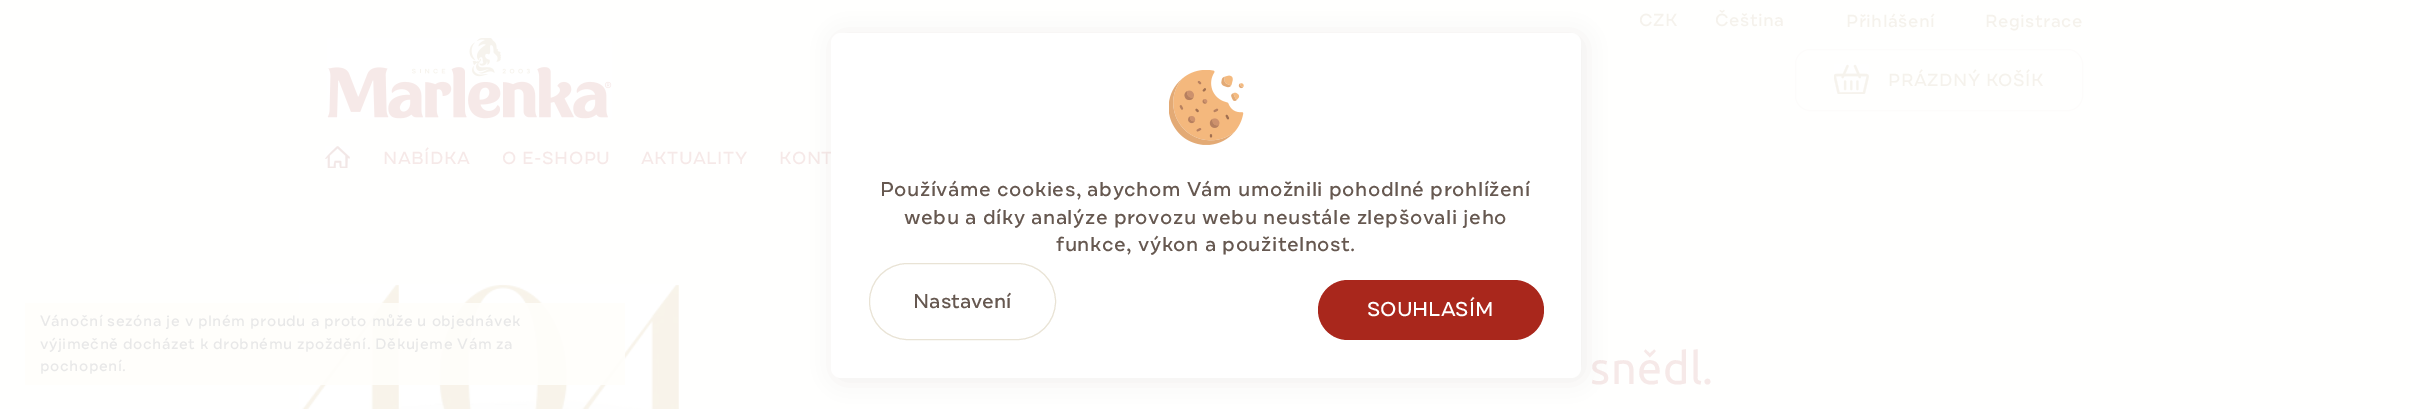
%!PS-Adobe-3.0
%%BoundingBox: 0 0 2411 409
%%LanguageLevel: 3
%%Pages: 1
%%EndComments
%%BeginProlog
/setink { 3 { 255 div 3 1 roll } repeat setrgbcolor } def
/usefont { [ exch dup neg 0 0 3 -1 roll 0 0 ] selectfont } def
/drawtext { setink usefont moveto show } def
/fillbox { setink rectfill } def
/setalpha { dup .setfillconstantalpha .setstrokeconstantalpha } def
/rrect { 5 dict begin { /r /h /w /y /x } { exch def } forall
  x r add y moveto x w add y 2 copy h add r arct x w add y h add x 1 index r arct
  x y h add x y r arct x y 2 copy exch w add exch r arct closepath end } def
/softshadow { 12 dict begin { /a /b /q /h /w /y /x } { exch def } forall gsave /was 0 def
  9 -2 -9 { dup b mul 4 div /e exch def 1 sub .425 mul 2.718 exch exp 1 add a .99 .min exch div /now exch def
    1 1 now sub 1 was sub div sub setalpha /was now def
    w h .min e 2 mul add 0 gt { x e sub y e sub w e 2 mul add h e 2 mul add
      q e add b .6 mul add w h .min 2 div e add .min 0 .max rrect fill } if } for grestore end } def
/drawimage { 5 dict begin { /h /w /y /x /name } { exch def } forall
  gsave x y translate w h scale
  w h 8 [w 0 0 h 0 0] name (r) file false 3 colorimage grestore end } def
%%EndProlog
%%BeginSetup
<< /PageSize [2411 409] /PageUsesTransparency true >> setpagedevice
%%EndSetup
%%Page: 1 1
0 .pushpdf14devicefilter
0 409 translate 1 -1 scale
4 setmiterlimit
0 0 2411 409 255 255 254 fillbox
/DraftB-Medium 17.5 usefont
245 242 236 setink
1639 26 moveto 0.5 0 (CZK) ashow
1715 26 moveto 0.5 0 (Čeština) ashow
1846 27 moveto 0.5 0 (Přihlášení) ashow
1985 27 moveto 0.5 0 (Registrace) ashow
(assets/img1.rgb) 327 38 285 81 drawimage
253 252 251 setink
1795.5 49.5 287 61 14.5 rrect stroke
(assets/img2.rgb) 1834 64 35 30 drawimage
245 242 236 setink
1888 86 moveto 0.5 0 (PRÁZDNÝ KOŠÍK) ashow
(assets/img3.rgb) 325 146 25 22 drawimage
246 233 232 setink
383 164 moveto 0.5 0 (NABÍDKA) ashow
502 164 moveto 0.5 0 (O E-SHOPU) ashow
641 164 moveto 0.5 0 (AKTUALITY) ashow
779 164 moveto 0.5 0 (KONT) ashow
(assets/img4.rgb) 299 284 380 125 drawimage
0.9 setalpha
25 303 600 82 255 254 251 fillbox
/DraftB-Medium 15 usefont
1 setalpha
232 232 232 setink
40 326 moveto 0.5 0 (Vánoční sezóna je v plném proudu a proto může u objednávek) ashow
40 349 moveto 0.5 0 (výjimečně docházet k drobnému zpoždění. Děkujeme Vám za) ashow
40 371 moveto 0.5 0 (pochopení.) ashow
/Ubuntu-Regular 45 usefont
246 233 232 setink
1590 384 moveto 0.5 0 (snědl.) ashow
102 88 80 setink
834 35 750 345 10 10.5 0.1 softshadow
255 255 255 setink
831 33 750 345 10 rrect fill
(assets/img5.rgb) 1169 70 75 75 drawimage
/DraftB-Medium 20 usefont
102 88 80 setink
880 196 moveto 0.5 0 (Používáme cookies, abychom Vám umožnili pohodlné prohlížení) ashow
904 224 moveto 0.5 0 (webu a díky analýze provozu webu neustále zlepšovali jeho) ashow
1056 251 moveto 0.5 0 (funkce, výkon a použitelnost.) ashow
233 227 213 setink
869.5 263.5 186 76 38 rrect stroke
(Nastavení) 913 308 /DraftB-Medium 20 102 88 80 drawtext
169 39 28 setink
1318 280 226 60 30 rrect fill
(SOUHLASÍM) 1367 316 /DraftB-Medium 20 255 255 255 drawtext
.poppdf14devicefilter showpage
%%EOF
